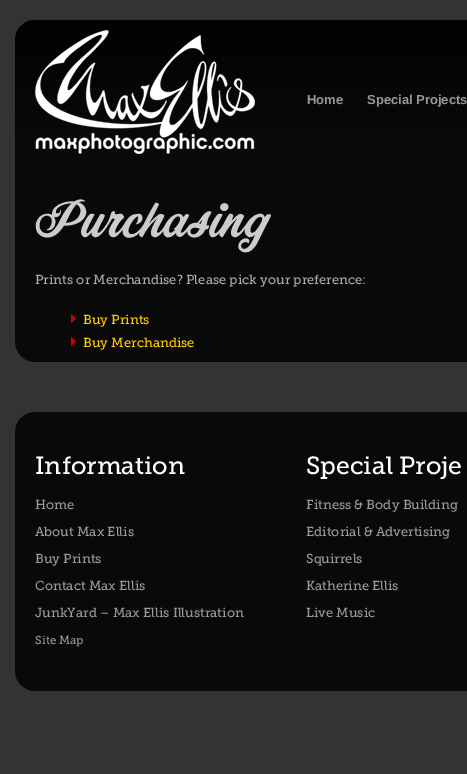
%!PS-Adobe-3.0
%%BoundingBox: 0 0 467 774
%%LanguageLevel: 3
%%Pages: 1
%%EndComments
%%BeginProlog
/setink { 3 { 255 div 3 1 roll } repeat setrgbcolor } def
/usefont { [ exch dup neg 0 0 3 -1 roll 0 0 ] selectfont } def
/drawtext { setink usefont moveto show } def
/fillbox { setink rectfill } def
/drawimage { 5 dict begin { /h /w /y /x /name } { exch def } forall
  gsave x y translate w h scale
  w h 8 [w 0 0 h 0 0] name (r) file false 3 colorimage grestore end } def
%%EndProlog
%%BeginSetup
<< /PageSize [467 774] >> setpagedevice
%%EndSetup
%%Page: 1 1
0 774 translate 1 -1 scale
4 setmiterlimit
0 0 467 774 51 51 51 fillbox
(assets/img1.rgb) 15 20 452 144 drawimage
(assets/img2.rgb) 35 30 220 124 drawimage
(Home) 307 104 /LiberationSans-Bold 13 153 153 153 drawtext
(Special Projects) 367 104 /LiberationSans-Bold 13 153 153 153 drawtext
(assets/img3.rgb) 15 164 452 198 drawimage
(Purchasing) 35 237 /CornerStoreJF-Regular 46 204 204 204 drawtext
(Prints or Merchandise? Please pick your preference:) 35 284 /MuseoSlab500-Regular 13 170 170 170 drawtext
(assets/img4.rgb) 71 314 5 9 drawimage
(Buy Prints) 83 324 /MuseoSlab500-Regular 13 255 204 0 drawtext
(assets/img4.rgb) 71 337 5 9 drawimage
(Buy Merchandise) 83 347 /MuseoSlab500-Regular 13 255 204 0 drawtext
(assets/img5.rgb) 15 412 452 279 drawimage
(Information) 35 474 /MuseoSlab500-Regular 24.75 255 255 255 drawtext
(Home) 35 509 /MuseoSlab500-Regular 13 153 153 153 drawtext
(About Max Ellis) 35 536 /MuseoSlab500-Regular 13 153 153 153 drawtext
(Buy Prints) 35 563 /MuseoSlab500-Regular 13 153 153 153 drawtext
(Contact Max Ellis) 35 590 /MuseoSlab500-Regular 13 153 153 153 drawtext
(JunkYard – Max Ellis Illustration) 35 617 /MuseoSlab500-Regular 13 153 153 153 drawtext
(Site Map) 35 644 /MuseoSlab500-Regular 11.5 153 153 153 drawtext
(Special Proje) 306 474 /MuseoSlab500-Regular 24.75 255 255 255 drawtext
(Fitness & Body Building) 306 509 /MuseoSlab500-Regular 13 153 153 153 drawtext
(Editorial & Advertising) 306 536 /MuseoSlab500-Regular 13 153 153 153 drawtext
(Squirrels) 306 563 /MuseoSlab500-Regular 13 153 153 153 drawtext
(Katherine Ellis) 306 590 /MuseoSlab500-Regular 13 153 153 153 drawtext
(Live Music) 306 617 /MuseoSlab500-Regular 13 153 153 153 drawtext
showpage
%%EOF
